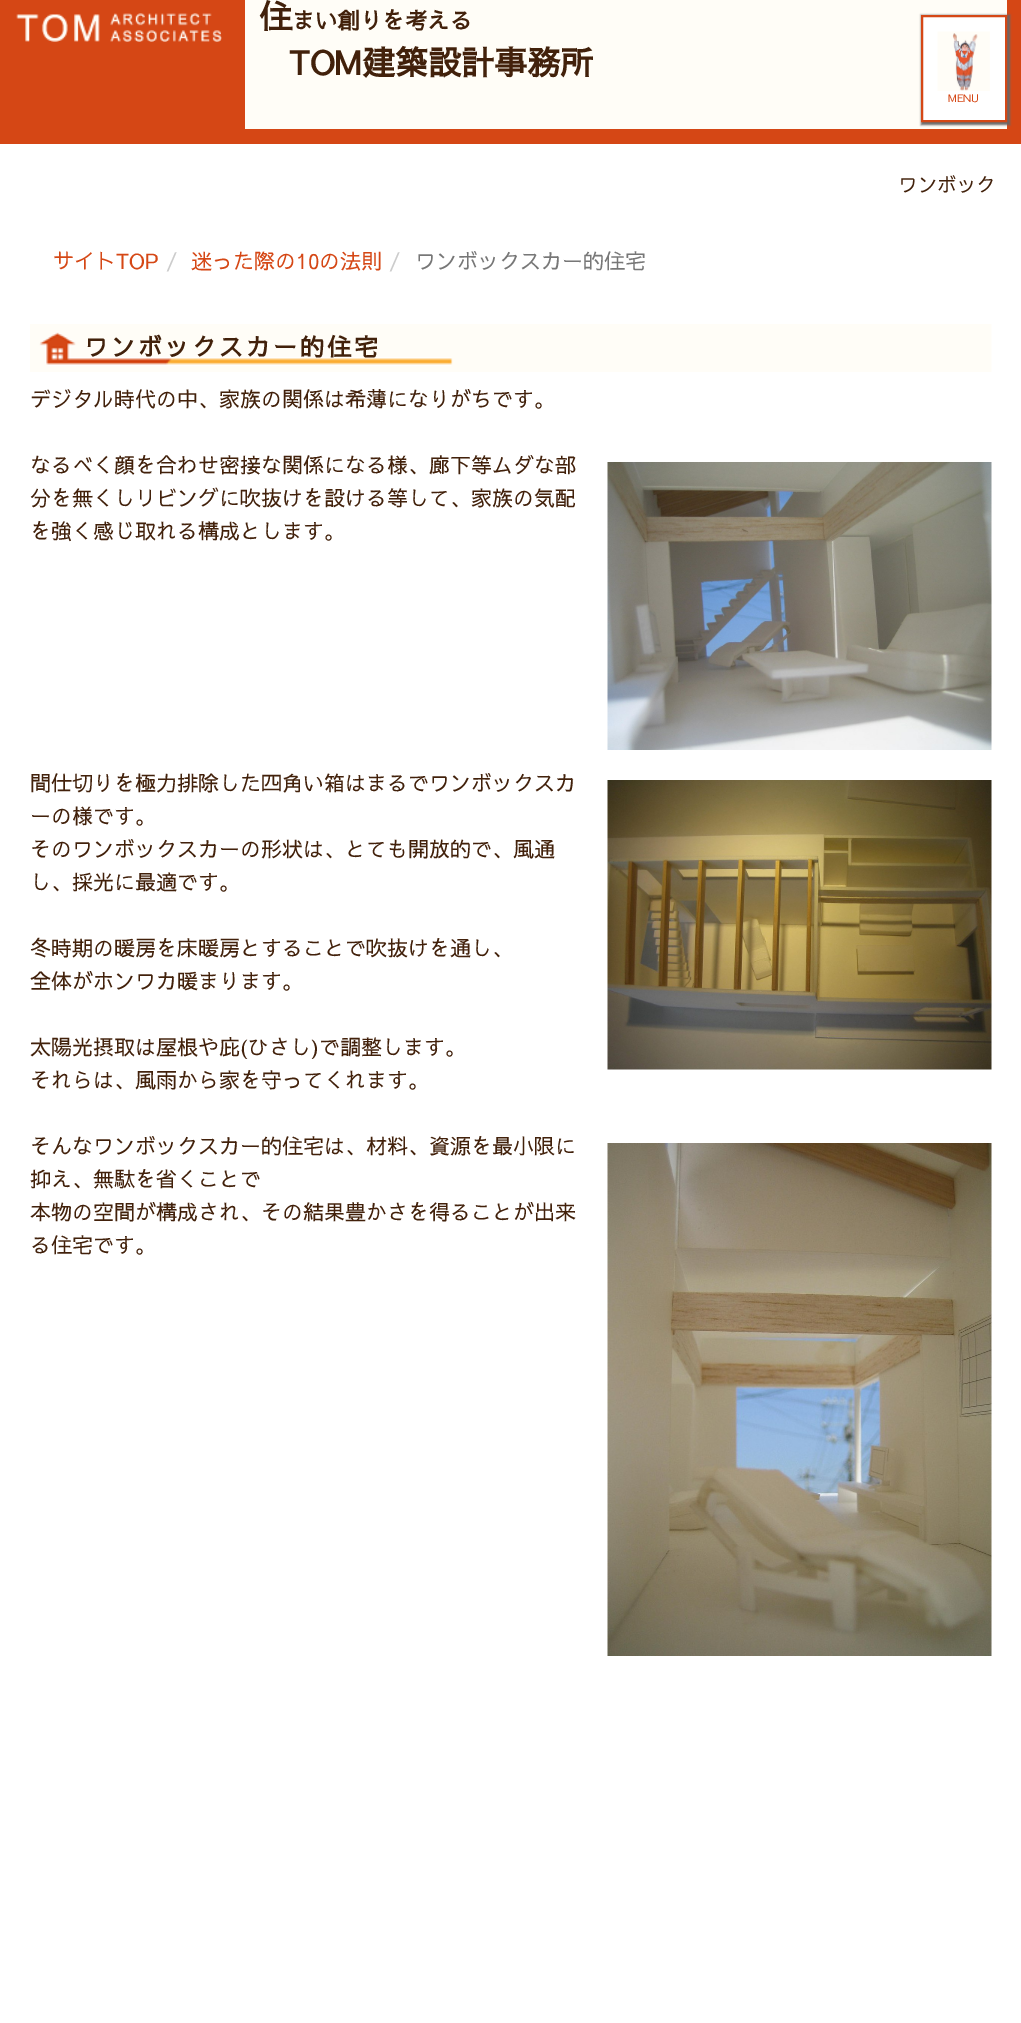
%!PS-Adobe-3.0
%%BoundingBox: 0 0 1021 2023
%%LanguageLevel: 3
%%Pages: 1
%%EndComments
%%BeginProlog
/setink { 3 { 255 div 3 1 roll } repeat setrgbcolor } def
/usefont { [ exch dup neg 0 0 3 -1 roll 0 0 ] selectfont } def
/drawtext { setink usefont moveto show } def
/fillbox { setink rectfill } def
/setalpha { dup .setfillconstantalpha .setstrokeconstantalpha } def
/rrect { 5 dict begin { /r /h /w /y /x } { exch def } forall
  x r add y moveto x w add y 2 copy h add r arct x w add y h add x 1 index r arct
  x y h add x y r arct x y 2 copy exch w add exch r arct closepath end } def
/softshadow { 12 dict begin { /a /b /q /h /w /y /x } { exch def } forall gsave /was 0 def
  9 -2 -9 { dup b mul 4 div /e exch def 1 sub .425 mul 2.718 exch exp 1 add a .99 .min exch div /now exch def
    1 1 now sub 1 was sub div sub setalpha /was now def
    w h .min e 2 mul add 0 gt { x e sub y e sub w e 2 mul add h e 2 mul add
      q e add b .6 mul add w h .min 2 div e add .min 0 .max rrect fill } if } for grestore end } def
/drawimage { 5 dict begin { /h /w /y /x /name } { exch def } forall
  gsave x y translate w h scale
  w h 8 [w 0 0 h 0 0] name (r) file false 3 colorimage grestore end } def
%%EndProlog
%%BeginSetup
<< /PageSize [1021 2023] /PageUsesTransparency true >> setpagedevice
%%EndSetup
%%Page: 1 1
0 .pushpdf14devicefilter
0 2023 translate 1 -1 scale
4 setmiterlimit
0 0 1021 2023 255 253 247 fillbox
0 129 1021 15 213 71 21 fillbox
0 0 245 129 213 71 21 fillbox
(assets/img1.rgb) 16 13 206 29 drawimage
1007 0 14 129 213 71 21 fillbox
(住) 259 29 /SawarabiGothic-Bold 33 66 33 11 drawtext
(まい創りを考える) 292 29 /SawarabiGothic-Bold 22.5 66 33 11 drawtext
(TOM建築設計事務所) 289 75 /SawarabiGothic-Bold 33 66 33 11 drawtext
102 102 102 setink
921 15 89 110 0 1 1 softshadow
255 255 255 setink
922 16 moveto 1006 16 lineto 1006 121 lineto 922 121 lineto closepath gsave fill grestore
213 71 21 setink
2 setlinewidth
stroke
(assets/img2.rgb) 937 31 53 60 drawimage
(MENU) 948 102 /SawarabiGothic-Regular 10.5 213 71 21 drawtext
0 144 1021 1879 255 255 255 fillbox
(ワンボック) 898 192 /SawarabiGothic-Regular 19.5 66 33 11 drawtext
(サイトTOP) 53 269 /SawarabiGothic-Regular 21 213 71 21 drawtext
(/) 166 269 /SawarabiGothic-Regular 21 204 204 204 drawtext
(迷った際の10の法則) 191 269 /SawarabiGothic-Regular 21 213 71 21 drawtext
(/) 389 269 /SawarabiGothic-Regular 21 204 204 204 drawtext
(ワンボックスカー的住宅) 415 269 /SawarabiGothic-Regular 21 119 119 119 drawtext
(assets/img3.rgb) 30 324 962 48 drawimage
/SawarabiGothic-Bold 24 usefont
66 33 11 setink
84 356 moveto 3 0 (ワンボックスカー的住宅) ashow
(デジタル時代の中、家族の関係は希薄になりがちです。) 30 407 /SawarabiGothic-Regular 21 66 33 11 drawtext
(なるべく顔を合わせ密接な関係になる様、廊下等ムダな部) 30 473 /SawarabiGothic-Regular 21 66 33 11 drawtext
(assets/img4.rgb) 607 462 385 288 drawimage
(分を無くしリビングに吹抜けを設ける等して、家族の気配) 30 506 /SawarabiGothic-Regular 21 66 33 11 drawtext
(を強く感じ取れる構成とします。) 30 539 /SawarabiGothic-Regular 21 66 33 11 drawtext
(間仕切りを極力排除した四角い箱はまるでワンボックスカ) 30 791 /SawarabiGothic-Regular 21 66 33 11 drawtext
(assets/img5.rgb) 607 780 385 290 drawimage
(ーの様です。) 30 824 /SawarabiGothic-Regular 21 66 33 11 drawtext
(そのワンボックスカーの形状は、とても開放的で、風通) 30 857 /SawarabiGothic-Regular 21 66 33 11 drawtext
(し、採光に最適です。) 30 890 /SawarabiGothic-Regular 21 66 33 11 drawtext
(冬時期の暖房を床暖房とすることで吹抜けを通し、) 30 956 /SawarabiGothic-Regular 21 66 33 11 drawtext
(全体がホンワカ暖まります。) 30 989 /SawarabiGothic-Regular 21 66 33 11 drawtext
(太陽光摂取は屋根や庇\(ひさし\)で調整します。) 30 1055 /SawarabiGothic-Regular 21 66 33 11 drawtext
(それらは、風雨から家を守ってくれます。) 30 1088 /SawarabiGothic-Regular 21 66 33 11 drawtext
(そんなワンボックスカー的住宅は、材料、資源を最小限に) 30 1154 /SawarabiGothic-Regular 21 66 33 11 drawtext
(assets/img6.rgb) 607 1143 385 513 drawimage
(抑え、無駄を省くことで) 30 1187 /SawarabiGothic-Regular 21 66 33 11 drawtext
(本物の空間が構成され、その結果豊かさを得ることが出来) 30 1220 /SawarabiGothic-Regular 21 66 33 11 drawtext
(る住宅です。) 30 1253 /SawarabiGothic-Regular 21 66 33 11 drawtext
.poppdf14devicefilter showpage
%%EOF
